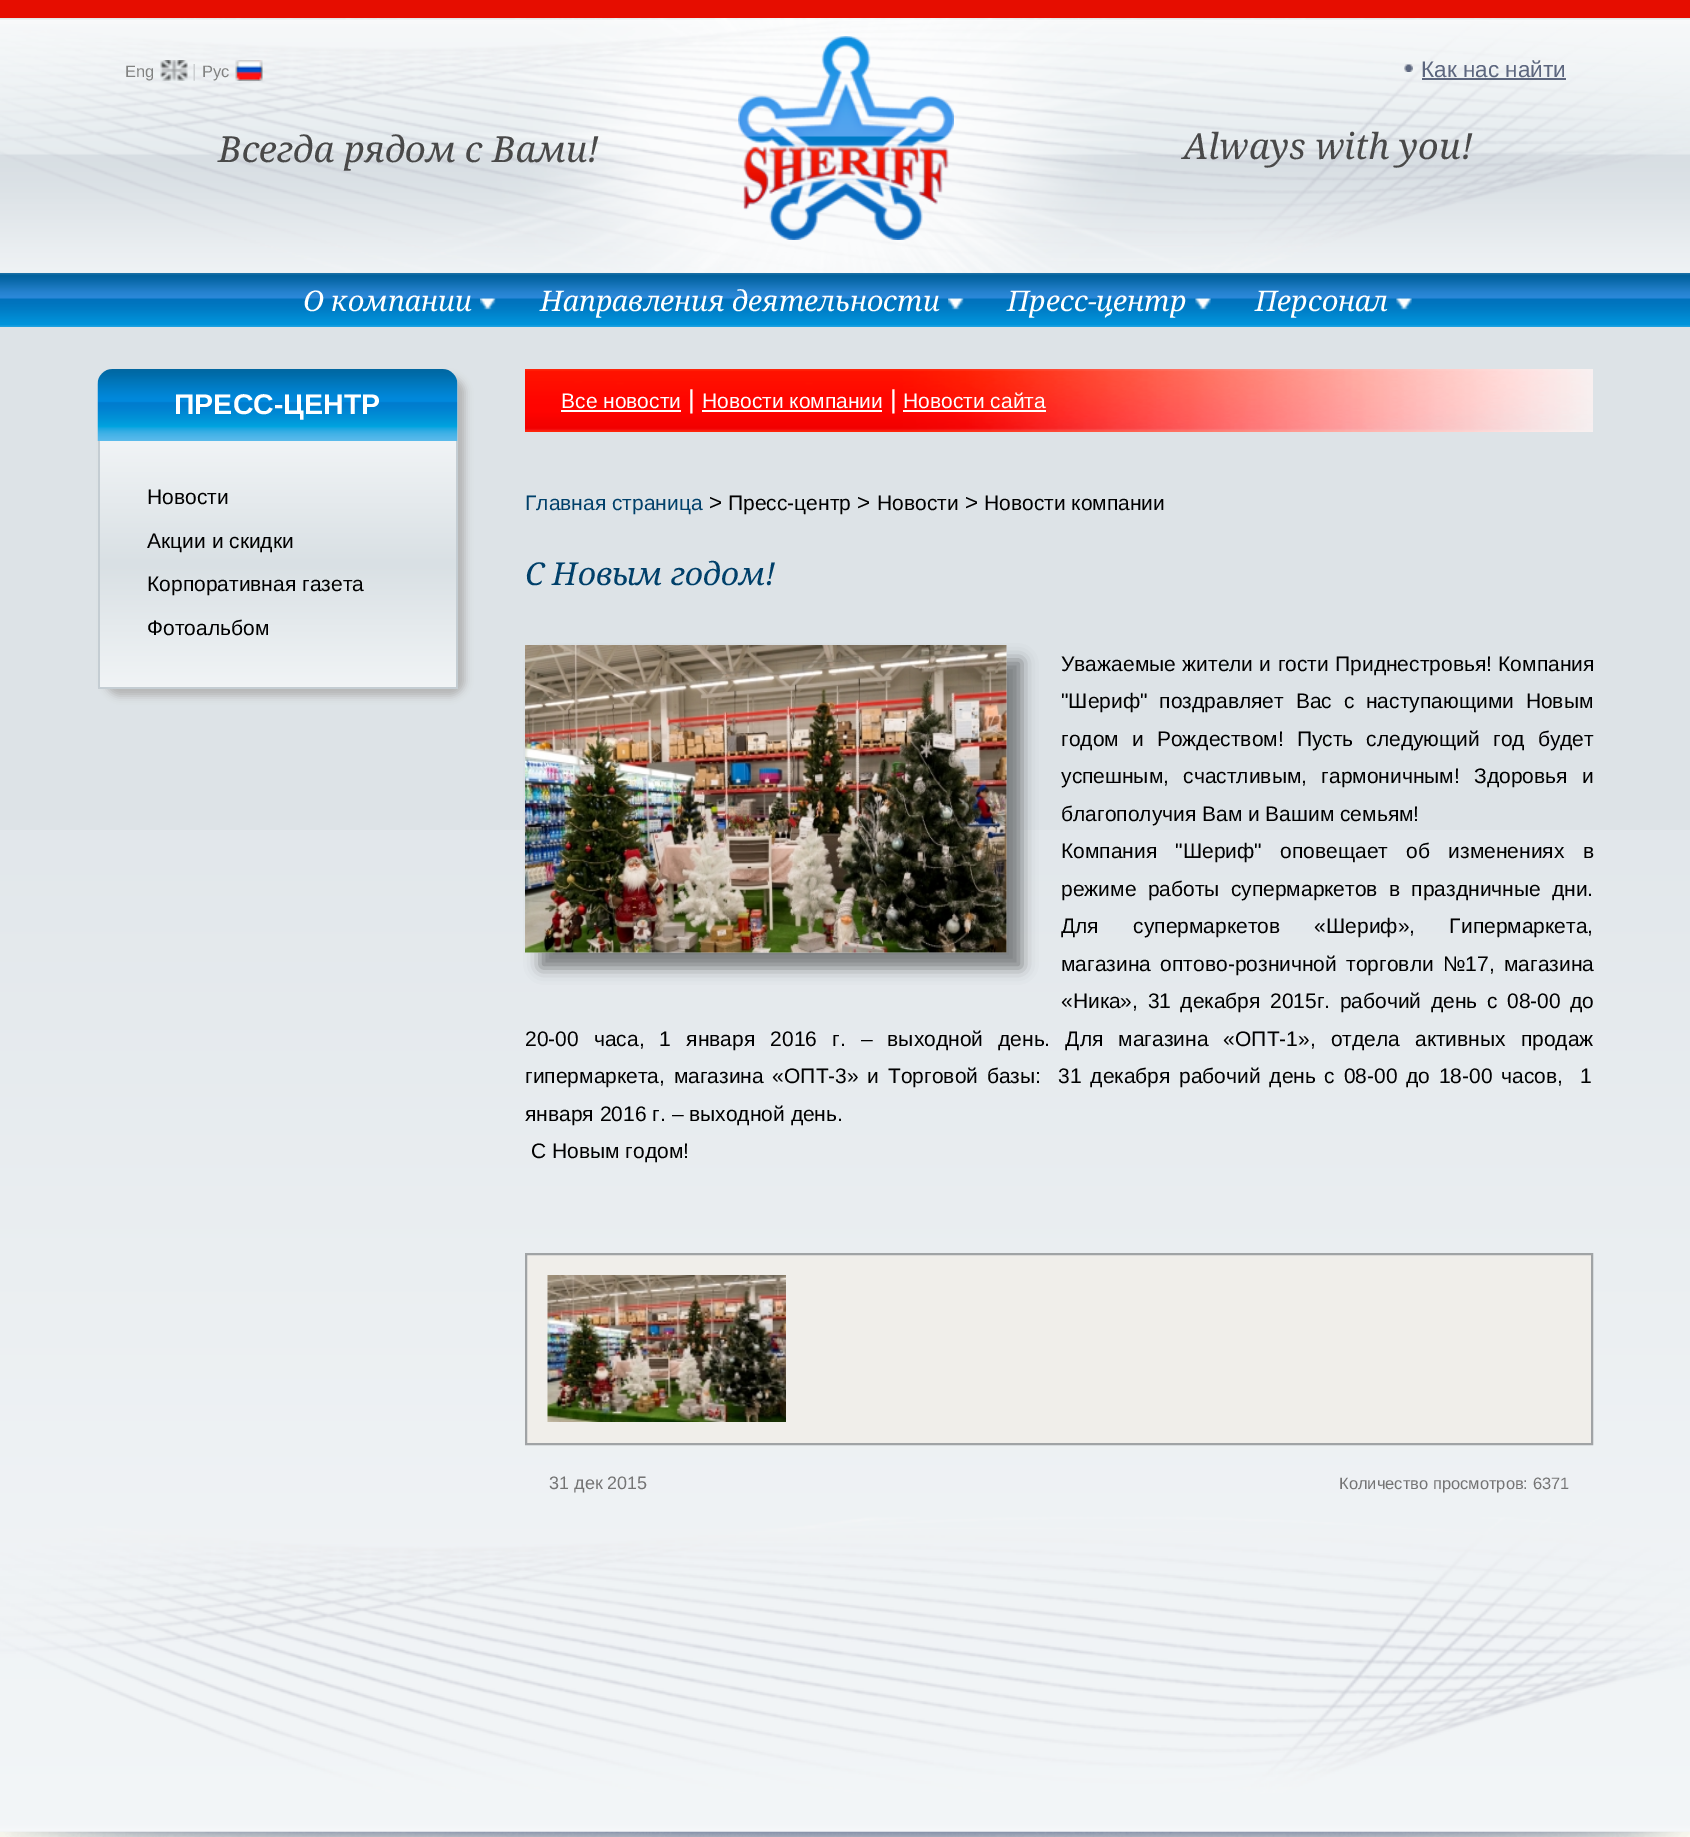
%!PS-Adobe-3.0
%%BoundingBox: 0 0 1690 1837
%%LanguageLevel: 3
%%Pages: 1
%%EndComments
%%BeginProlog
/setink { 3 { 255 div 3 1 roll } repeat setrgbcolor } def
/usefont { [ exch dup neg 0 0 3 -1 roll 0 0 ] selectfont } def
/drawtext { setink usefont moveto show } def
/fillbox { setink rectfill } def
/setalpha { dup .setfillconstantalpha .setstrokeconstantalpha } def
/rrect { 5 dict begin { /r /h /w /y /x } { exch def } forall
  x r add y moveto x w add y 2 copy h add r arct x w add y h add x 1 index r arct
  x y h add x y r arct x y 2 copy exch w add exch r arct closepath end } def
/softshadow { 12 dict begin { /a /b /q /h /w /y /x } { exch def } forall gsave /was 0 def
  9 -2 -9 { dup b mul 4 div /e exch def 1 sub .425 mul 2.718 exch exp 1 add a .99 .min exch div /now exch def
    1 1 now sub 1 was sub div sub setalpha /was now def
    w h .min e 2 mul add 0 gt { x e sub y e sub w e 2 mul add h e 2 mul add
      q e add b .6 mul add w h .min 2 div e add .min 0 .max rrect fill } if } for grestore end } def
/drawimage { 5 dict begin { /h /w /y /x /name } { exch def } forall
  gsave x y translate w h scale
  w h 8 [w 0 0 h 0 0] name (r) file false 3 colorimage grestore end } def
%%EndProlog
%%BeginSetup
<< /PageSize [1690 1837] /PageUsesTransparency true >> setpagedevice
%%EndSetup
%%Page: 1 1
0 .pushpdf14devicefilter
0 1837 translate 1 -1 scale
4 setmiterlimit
0 0 1690 1837 221 227 231 fillbox
(assets/img1.rgb) 0 830 1690 1002 drawimage
(assets/img2.rgb) 0 18 1690 255 drawimage
0 0 1690 18 230 13 0 fillbox
(assets/img3.rgb) 160 60 28 21 drawimage
(Eng) 125 77 /LiberationSans-Regular 16.5 129 130 129 drawtext
(|) 192 77 /LiberationSans-Regular 18 204 207 209 drawtext
(assets/img4.rgb) 235 60 28 21 drawimage
(Рус) 202 77 /LiberationSans-Regular 16.5 129 130 129 drawtext
(Всегда рядом с Вами!) 218 162 /NotoSerif-Italic 36 73 73 73 drawtext
(assets/img5.rgb) 738 36 216 204 drawimage
(assets/img6.rgb) 1404 64 9 8 drawimage
(Как нас найти) 1421 77 /LiberationSans-Regular 22.5 92 102 126 drawtext
1422 78 144 2 92 102 126 fillbox
(Always with you!) 1183 159 /NotoSerif-Italic 36 73 73 73 drawtext
(assets/img7.rgb) 0 273 1690 54 drawimage
(assets/img8.rgb) 480 298 16 12 drawimage
(О компании) 303 311 /NotoSerif-Italic 28.5 255 255 255 drawtext
(assets/img9.rgb) 948 298 16 12 drawimage
(Направления деятельности) 540 311 /NotoSerif-Italic 28.5 255 255 255 drawtext
(assets/img10.rgb) 1195 298 16 12 drawimage
(Пресс-центр) 1007 311 /NotoSerif-Italic 28.5 255 255 255 drawtext
(assets/img10.rgb) 1396 298 16 12 drawimage
(Персонал) 1255 311 /NotoSerif-Italic 28.5 255 255 255 drawtext
180 181 181 setink
105 377 360 319 15 4 1 softshadow
(assets/img11.rgb) 97 369 361 72 drawimage
(ПРЕСС-ЦЕНТР) 174 414 /LiberationSans-Bold 28.5 255 255 255 drawtext
gsave 100 441 moveto 456 441 lineto 456 687 lineto 100 687 lineto closepath clip newpath
<< /ShadingType 2 /ColorSpace /DeviceRGB /Coords [278 441 278 687] /Extend [true true] /Function << /FunctionType 3 /Domain [0 1] /Functions [<< /FunctionType 2 /Domain [0 1] /C0 [0.945 0.957 0.965] /C1 [0.851 0.878 0.894] /N 1 >> << /FunctionType 2 /Domain [0 1] /C0 [0.851 0.878 0.894] /C1 [0.945 0.957 0.965] /N 1 >>] /Bounds [0.5] /Encode [0 1 0 1] >> >> shfill grestore
456 441 2 248 196 205 211 fillbox
98 687 360 2 196 205 211 fillbox
98 441 2 248 196 205 211 fillbox
(Новости) 147 504 /LiberationSans-Regular 21 0 0 0 drawtext
(Акции и скидки) 147 548 /LiberationSans-Regular 21 0 0 0 drawtext
(Корпоративная газета) 147 591 /LiberationSans-Regular 21 0 0 0 drawtext
(Фотоальбом) 147 635 /LiberationSans-Regular 21 0 0 0 drawtext
(assets/img12.rgb) 525 369 1068 63 drawimage
(Все новости) 561 408 /LiberationSans-Regular 21 255 255 255 drawtext
561 410 120 2 255 255 255 fillbox
(|) 688 408 /LiberationSans-Regular 26 255 255 255 drawtext
(Новости компании) 702 408 /LiberationSans-Regular 21 255 255 255 drawtext
702 410 180 2 255 255 255 fillbox
(|) 890 408 /LiberationSans-Regular 26 255 255 255 drawtext
(Новости сайта) 903 408 /LiberationSans-Regular 21 255 255 255 drawtext
903 410 143 2 255 255 255 fillbox
(Главная страница) 525 510 /LiberationSans-Regular 21 0 64 106 drawtext
(>) 709 510 /LiberationSans-Regular 22.5 0 0 0 drawtext
(Пресс-центр) 728 510 /LiberationSans-Regular 21 0 0 0 drawtext
(>) 857 510 /LiberationSans-Regular 22.5 0 0 0 drawtext
(Новости) 877 510 /LiberationSans-Regular 21 0 0 0 drawtext
(>) 965 510 /LiberationSans-Regular 22.5 0 0 0 drawtext
(Новости компании) 984 510 /LiberationSans-Regular 21 0 0 0 drawtext
(С Новым годом!) 525 585 /NotoSerif-Italic 31.5 0 64 106 drawtext
123 126 128 setink
540 660 482 308 0 7.5 1 softshadow
(assets/img13.rgb) 525 645 482 308 drawimage
/LiberationSans-Regular 21 usefont
0 0 0 setink
1061 671 moveto 0.5 0 32 (Уважаемые жители и гости Приднестровья! Компания) widthshow
1061 708 moveto 6 0 32 ("Шериф" поздравляет Вас с наступающими Новым) widthshow
1061 746 moveto 7.25 0 32 (годом и Рождеством! Пусть следующий год будет) widthshow
1061 783 moveto 8.5 0 32 (успешным, счастливым, гармоничным! Здоровья и) widthshow
(благополучия Вам и Вашим семьям!) 1061 821 /LiberationSans-Regular 21 0 0 0 drawtext
1061 858 moveto 12.5 0 32 (Компания "Шериф" оповещает об изменениях в) widthshow
1061 896 moveto 5.5 0 32 (режиме работы супермаркетов в праздничные дни.) widthshow
1061 933 moveto 28.5 0 32 (Для супермаркетов «Шериф», Гипермаркета,) widthshow
1061 971 moveto 3.5 0 32 (магазина оптово-розничной торговли №17, магазина) widthshow
1061 1008 moveto 3.75 0 32 («Ника», 31 декабря 2015г. рабочий день с 08-00 до) widthshow
525 1046 moveto 9.25 0 32 (20-00 часа, 1 января 2016 г. – выходной день. Для магазина «ОПТ-1», отдела активных продаж) widthshow
525 1083 moveto 2.9 0 32 (гипермаркета, магазина «ОПТ-3» и Торговой базы:  31 декабря рабочий день с 08-00 до 18-00 часов,  1) widthshow
(января 2016 г. – выходной день.) 525 1121 /LiberationSans-Regular 21 0 0 0 drawtext
(С Новым годом!) 531 1158 /LiberationSans-Regular 21 0 0 0 drawtext
240 238 234 setink
526 1254 moveto 1592 1254 lineto 1592 1444 lineto 526 1444 lineto closepath gsave fill grestore
160 163 165 setink
2 setlinewidth
stroke
(assets/img14.rgb) 547 1275 239 147 drawimage
(31 дек 2015) 549 1489 /LiberationSans-Regular 18 116 116 116 drawtext
(Количество просмотров: 6371) 1339 1489 /LiberationSans-Regular 16.5 116 116 116 drawtext
(assets/img15.rgb) 0 1831 1690 6 drawimage
.poppdf14devicefilter showpage
%%EOF
